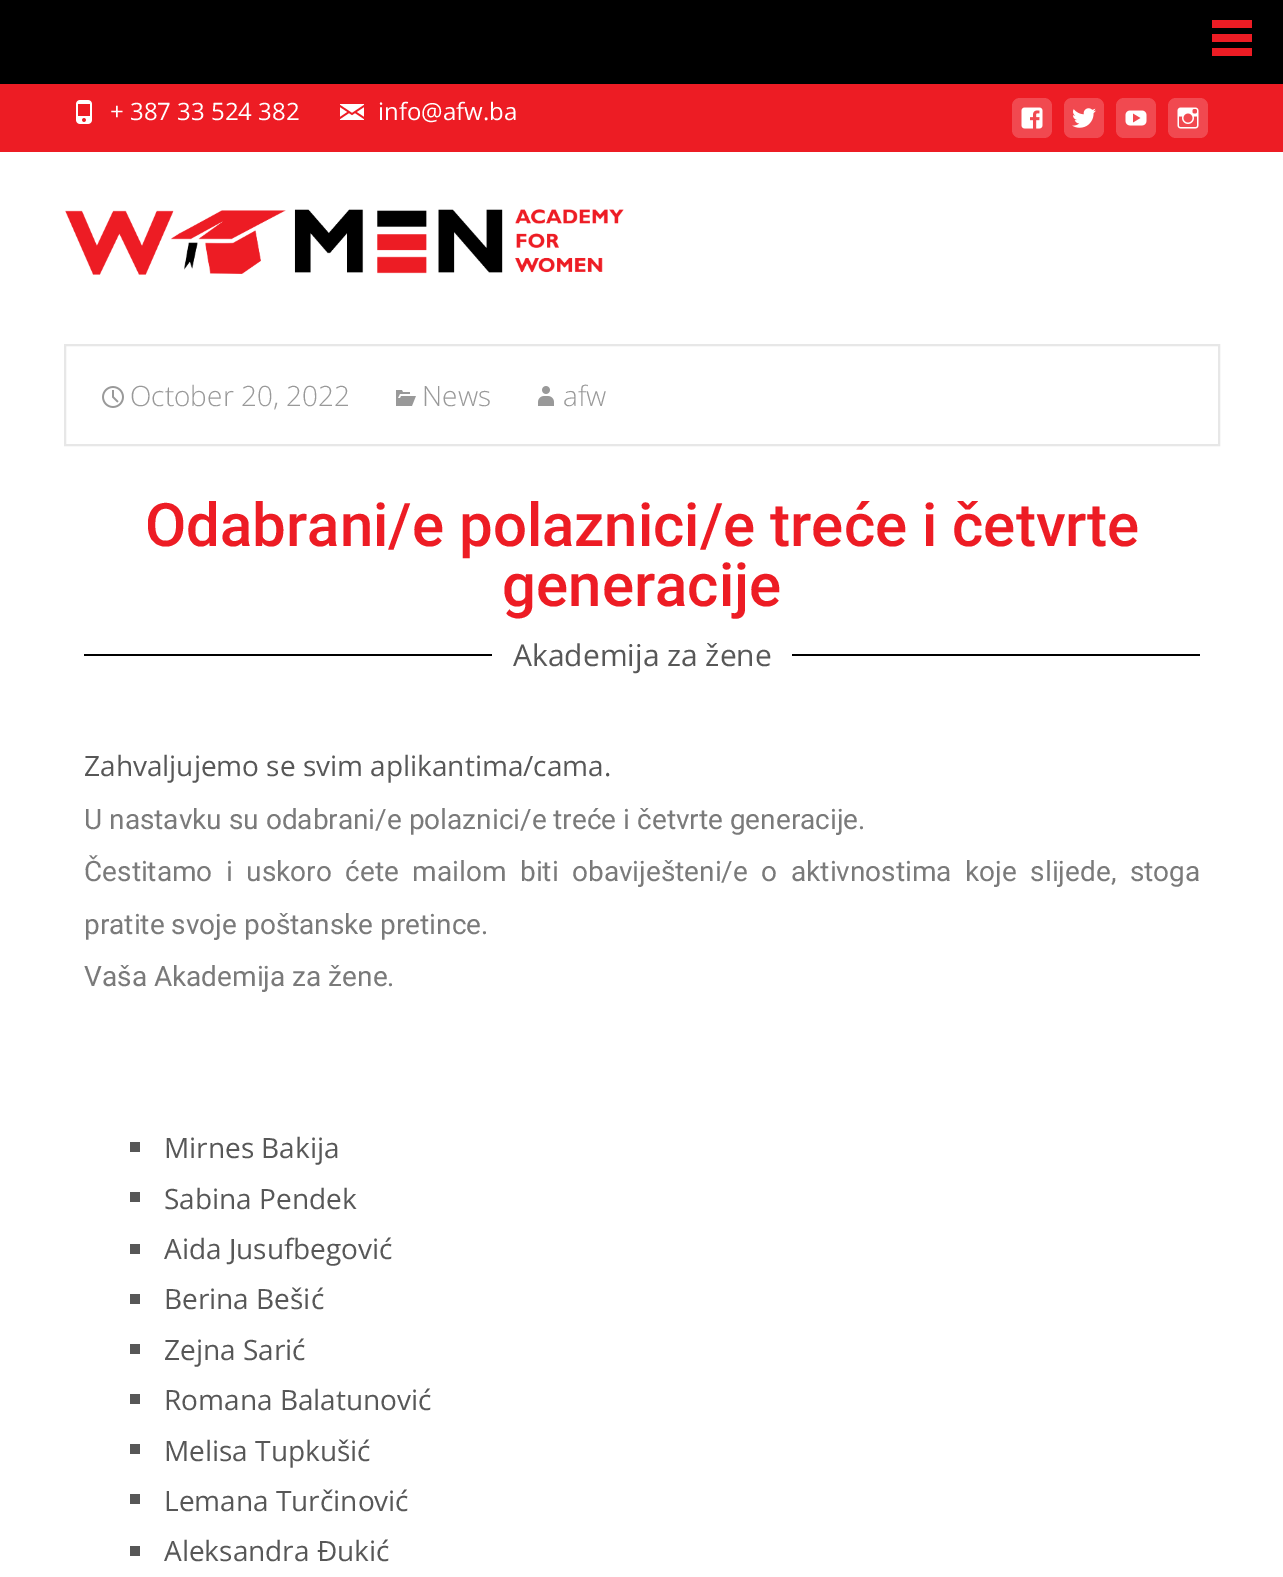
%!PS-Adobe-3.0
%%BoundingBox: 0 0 1283 1577
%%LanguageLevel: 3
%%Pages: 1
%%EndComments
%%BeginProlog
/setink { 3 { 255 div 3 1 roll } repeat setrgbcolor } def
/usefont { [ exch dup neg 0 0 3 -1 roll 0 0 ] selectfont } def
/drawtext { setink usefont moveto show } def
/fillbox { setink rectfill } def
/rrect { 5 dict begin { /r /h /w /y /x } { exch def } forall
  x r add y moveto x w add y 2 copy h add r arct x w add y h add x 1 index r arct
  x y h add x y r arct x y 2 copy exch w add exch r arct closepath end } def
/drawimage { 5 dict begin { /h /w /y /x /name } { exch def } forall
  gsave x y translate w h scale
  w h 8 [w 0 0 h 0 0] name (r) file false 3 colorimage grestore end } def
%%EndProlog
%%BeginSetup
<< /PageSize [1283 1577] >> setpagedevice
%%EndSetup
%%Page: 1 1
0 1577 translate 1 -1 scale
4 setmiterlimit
0 0 1283 1577 255 255 255 fillbox
0 0 1283 84 0 0 0 fillbox
1212 20 40 8 237 28 36 fillbox
1212 34 40 8 237 28 36 fillbox
1212 48 40 8 237 28 36 fillbox
0 84 1283 68 237 28 36 fillbox
(assets/img1.rgb) 76 100 16 24 drawimage
(+ 387 33 524 382) 110 120 /OpenSans-Regular 24 255 255 255 drawtext
(assets/img2.rgb) 340 104 24 16 drawimage
(info@afw.ba) 378 120 /OpenSans-Regular 24 255 255 255 drawtext
241 73 80 setink
1012 98 40 40 8 rrect fill
(assets/img3.rgb) 1021 107 22 22 drawimage
1064 98 40 40 8 rrect fill
(assets/img4.rgb) 1072 108 24 20 drawimage
1116 98 40 40 8 rrect fill
(assets/img5.rgb) 1125 110 22 16 drawimage
1168 98 40 40 8 rrect fill
(assets/img6.rgb) 1177 107 22 22 drawimage
(assets/img7.rgb) 65 209 559 66 drawimage
231 231 231 setink
2 setlinewidth
65 345 1154 100 rectstroke
(assets/img8.rgb) 102 386 22 22 drawimage
(October 20, 2022) 130 406 /OpenSans-Light 28 153 153 153 drawtext
(assets/img9.rgb) 396 390 20 16 drawimage
(News) 422 406 /OpenSans-Light 28 153 153 153 drawtext
(assets/img10.rgb) 538 386 16 20 drawimage
(afw) 563 406 /OpenSans-Light 28 153 153 153 drawtext
(Odabrani/e polaznici/e treće i četvrte) 145 546 /Roboto-Medium 60 237 28 36 drawtext
(generacije) 502 606 /Roboto-Medium 60 237 28 36 drawtext
84 654 408 2 0 0 0 fillbox
(Akademija za žene) 513 666 /OpenSans-Regular 30 87 87 87 drawtext
792 654 408 2 0 0 0 fillbox
(Zahvaljujemo se svim aplikantima/cama.) 84 776 /OpenSans-Regular 28 87 87 87 drawtext
(U nastavku su odabrani/e polaznici/e treće i četvrte generacije.) 84 829 /Roboto-Regular 28 122 122 122 drawtext
84 881 moveto 6.6 0 32 (Čestitamo i uskoro ćete mailom biti obaviješteni/e o aktivnostima koje slijede, stoga) widthshow
(pratite svoje poštanske pretince.) 84 934 /Roboto-Regular 28 122 122 122 drawtext
(Vaša Akademija za žene.) 84 986 /Roboto-Regular 28 122 122 122 drawtext
130 1142 10 10 87 87 87 fillbox
(Mirnes Bakija) 164 1158 /OpenSans-Regular 28 87 87 87 drawtext
130 1192 10 10 87 87 87 fillbox
(Sabina Pendek) 164 1209 /OpenSans-Regular 28 87 87 87 drawtext
130 1244 10 10 87 87 87 fillbox
(Aida Jusufbegović) 164 1259 /OpenSans-Regular 28 87 87 87 drawtext
130 1294 10 10 87 87 87 fillbox
(Berina Bešić) 164 1309 /OpenSans-Regular 28 87 87 87 drawtext
130 1344 10 10 87 87 87 fillbox
(Zejna Sarić) 164 1360 /OpenSans-Regular 28 87 87 87 drawtext
130 1394 10 10 87 87 87 fillbox
(Romana Balatunović) 164 1410 /OpenSans-Regular 28 87 87 87 drawtext
130 1444 10 10 87 87 87 fillbox
(Melisa Tupkušić) 164 1461 /OpenSans-Regular 28 87 87 87 drawtext
130 1494 10 10 87 87 87 fillbox
(Lemana Turčinović) 164 1511 /OpenSans-Regular 28 87 87 87 drawtext
130 1546 10 10 87 87 87 fillbox
(Aleksandra Đukić) 164 1561 /OpenSans-Regular 28 87 87 87 drawtext
showpage
%%EOF
